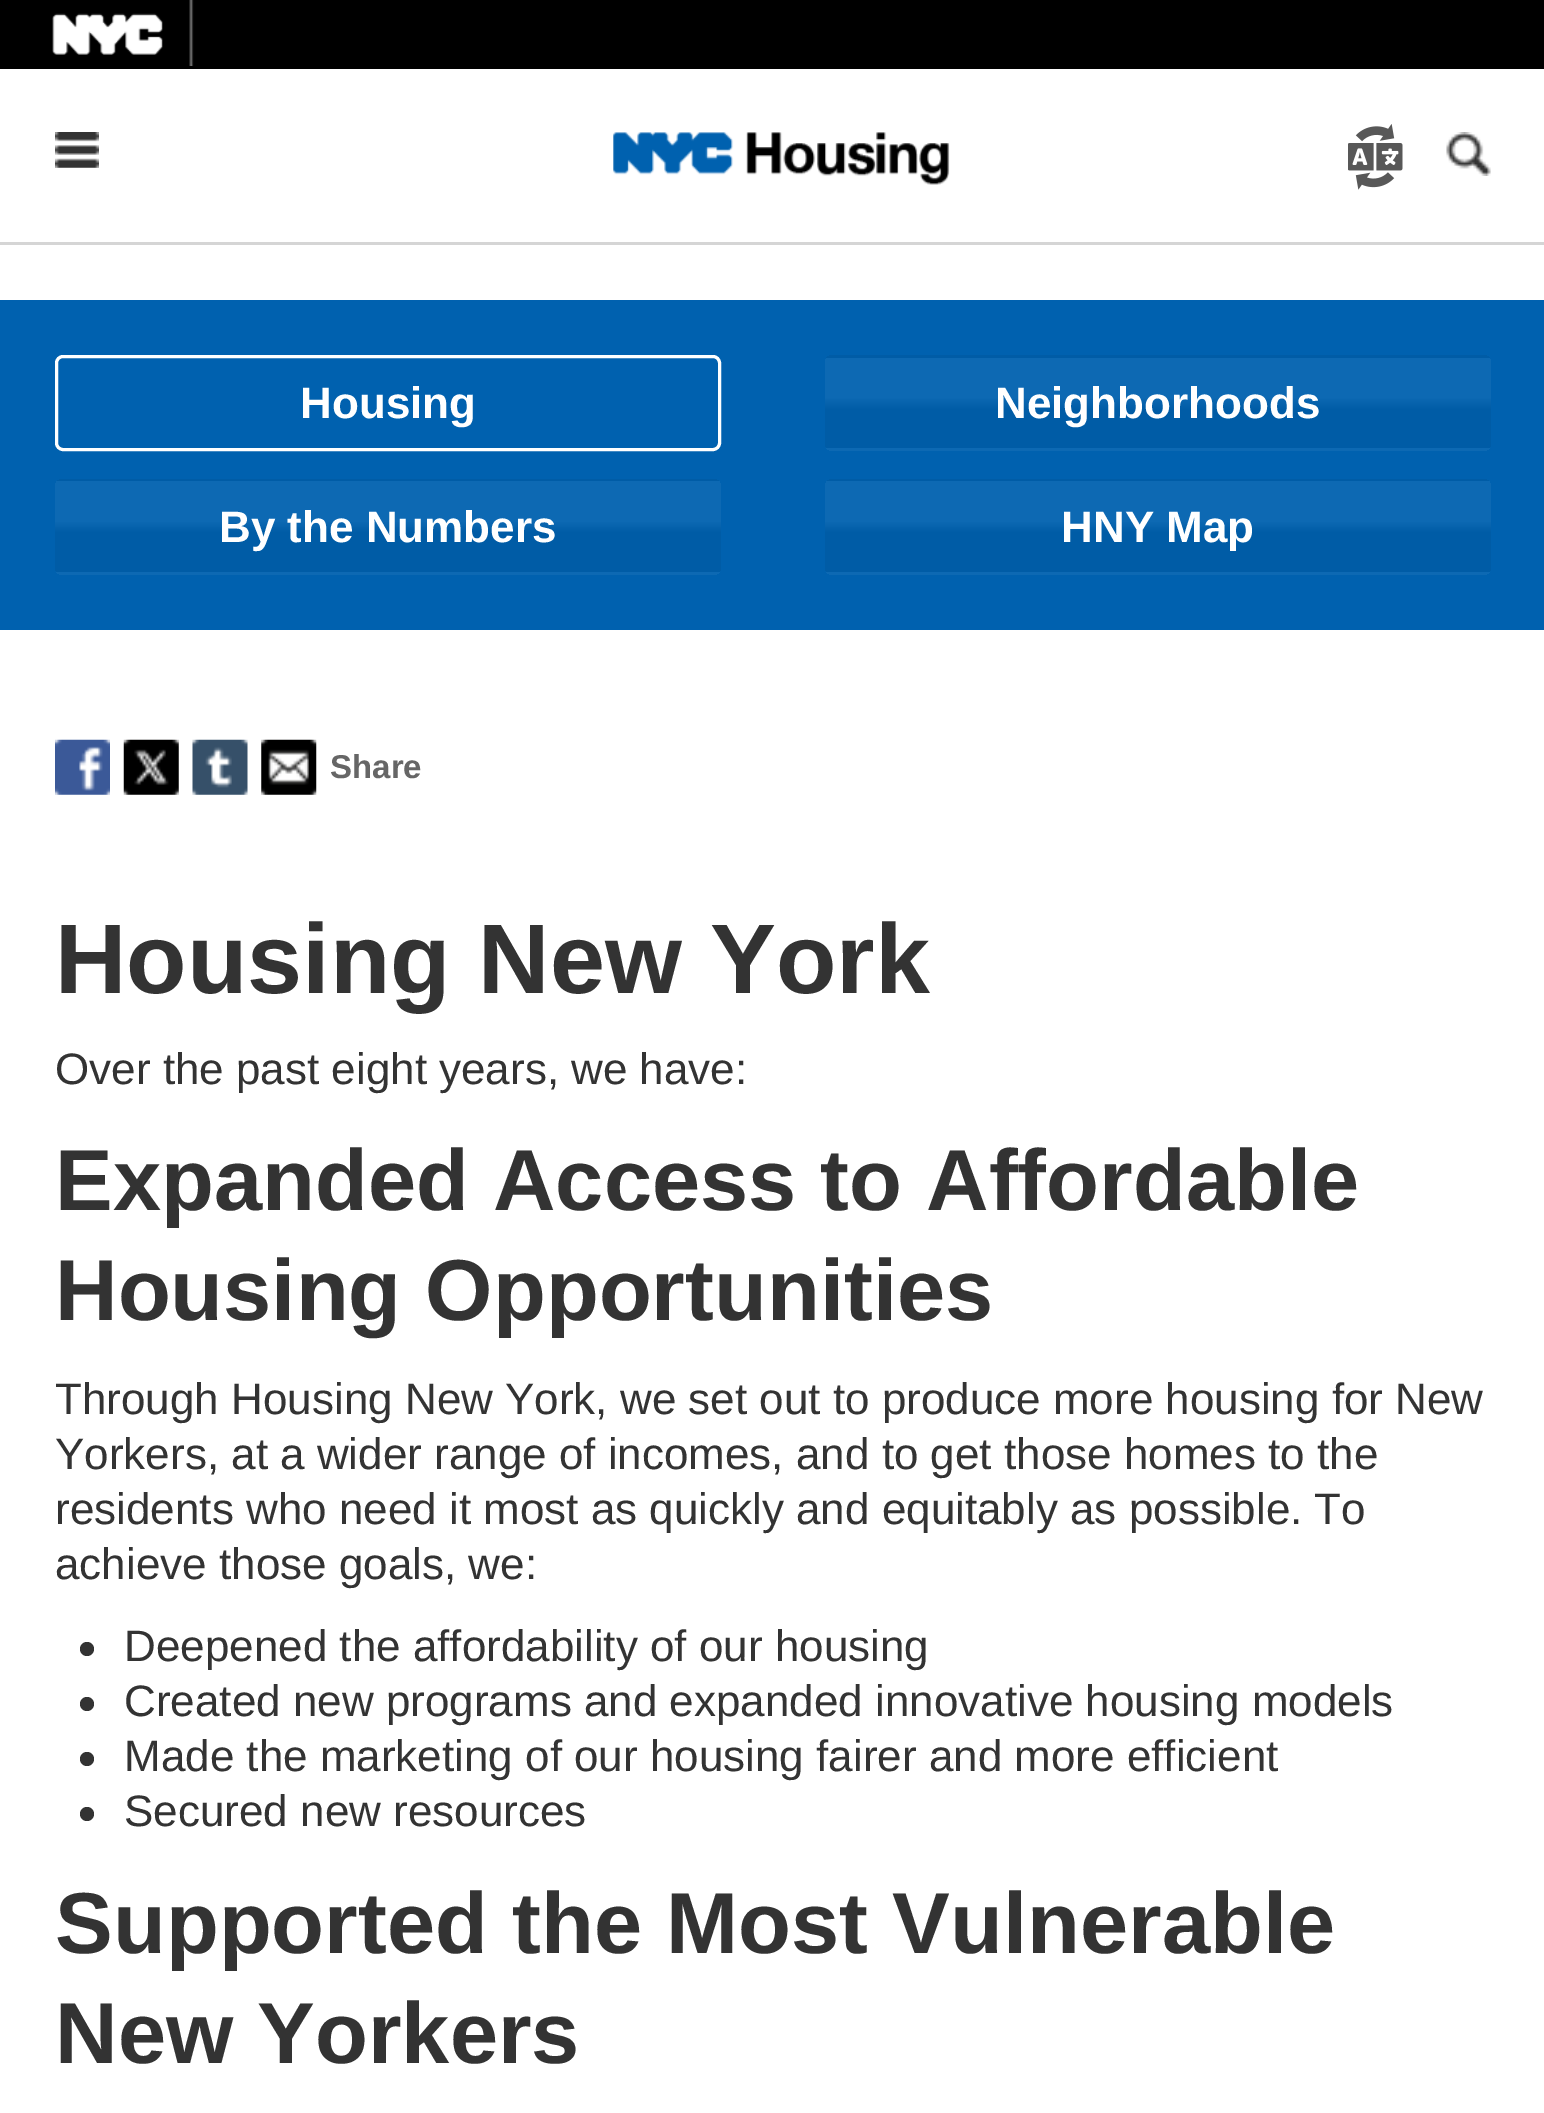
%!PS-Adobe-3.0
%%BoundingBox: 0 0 1544 2113
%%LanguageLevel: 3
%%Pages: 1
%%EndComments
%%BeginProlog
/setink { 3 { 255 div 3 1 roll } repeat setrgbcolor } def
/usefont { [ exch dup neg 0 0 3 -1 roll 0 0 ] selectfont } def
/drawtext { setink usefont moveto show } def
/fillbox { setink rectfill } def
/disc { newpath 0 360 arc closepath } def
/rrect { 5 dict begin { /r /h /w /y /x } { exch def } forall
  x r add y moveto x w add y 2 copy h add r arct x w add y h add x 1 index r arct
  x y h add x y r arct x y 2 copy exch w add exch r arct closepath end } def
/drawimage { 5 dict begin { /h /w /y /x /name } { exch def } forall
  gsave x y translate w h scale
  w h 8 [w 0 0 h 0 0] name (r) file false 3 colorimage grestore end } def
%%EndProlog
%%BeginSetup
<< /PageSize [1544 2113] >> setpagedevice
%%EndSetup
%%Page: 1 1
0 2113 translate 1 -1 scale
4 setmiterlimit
0 0 1544 2113 255 255 255 fillbox
0 0 1544 69 0 0 0 fillbox
(assets/img1.rgb) 52 13 111 42 drawimage
(assets/img2.rgb) 189 0 5 66 drawimage
0 242 1544 3 213 213 213 fillbox
(assets/img3.rgb) 55 132 44 36 drawimage
(assets/img4.rgb) 613 132 337 53 drawimage
(assets/img5.rgb) 1348 124 55 66 drawimage
(assets/img6.rgb) 1446 132 45 44 drawimage
0 300 1544 330 0 97 175 fillbox
255 255 255 setink
3 setlinewidth
56.5 356.5 663 93 6.5 rrect stroke
(Housing) 300 418 /LiberationSans-Bold 44 255 255 255 drawtext
gsave
825 355 666 96 8 rrect clip newpath
gsave 825 355 moveto 1491 355 lineto 1491 358 lineto 825 358 lineto closepath clip newpath
<< /ShadingType 2 /ColorSpace /DeviceRGB /Coords [1158 358 1158 267] /Extend [true true] /Function << /FunctionType 3 /Domain [0 1] /Functions [<< /FunctionType 2 /Domain [0 1] /C0 [0 0.361 0.651] /C1 [0 0.361 0.651] /N 1 >> << /FunctionType 2 /Domain [0 1] /C0 [0 0.361 0.651] /C1 [0.051 0.412 0.702] /N 1 >> << /FunctionType 2 /Domain [0 1] /C0 [0.051 0.412 0.702] /C1 [0.051 0.412 0.702] /N 1 >>] /Bounds [0.43 0.56] /Encode [0 1 0 1 0 1] >> >> shfill grestore
gsave 825 358 moveto 1491 358 lineto 1491 448 lineto 825 448 lineto closepath clip newpath
<< /ShadingType 2 /ColorSpace /DeviceRGB /Coords [1158 448 1158 358] /Extend [true true] /Function << /FunctionType 3 /Domain [0 1] /Functions [<< /FunctionType 2 /Domain [0 1] /C0 [0 0.361 0.651] /C1 [0 0.361 0.651] /N 1 >> << /FunctionType 2 /Domain [0 1] /C0 [0 0.361 0.651] /C1 [0.051 0.412 0.702] /N 1 >> << /FunctionType 2 /Domain [0 1] /C0 [0.051 0.412 0.702] /C1 [0.051 0.412 0.702] /N 1 >>] /Bounds [0.43 0.56] /Encode [0 1 0 1 0 1] >> >> shfill grestore
gsave 825 448 moveto 1491 448 lineto 1491 451 lineto 825 451 lineto closepath clip newpath
<< /ShadingType 2 /ColorSpace /DeviceRGB /Coords [1158 539 1158 448] /Extend [true true] /Function << /FunctionType 3 /Domain [0 1] /Functions [<< /FunctionType 2 /Domain [0 1] /C0 [0 0.361 0.651] /C1 [0 0.361 0.651] /N 1 >> << /FunctionType 2 /Domain [0 1] /C0 [0 0.361 0.651] /C1 [0.051 0.412 0.702] /N 1 >> << /FunctionType 2 /Domain [0 1] /C0 [0.051 0.412 0.702] /C1 [0.051 0.412 0.702] /N 1 >>] /Bounds [0.43 0.56] /Encode [0 1 0 1 0 1] >> >> shfill grestore
grestore
(Neighborhoods) 995 418 /LiberationSans-Bold 44 255 255 255 drawtext
gsave
55 479 666 96 8 rrect clip newpath
gsave 55 479 moveto 721 479 lineto 721 481 lineto 55 481 lineto closepath clip newpath
<< /ShadingType 2 /ColorSpace /DeviceRGB /Coords [388 481 388 391] /Extend [true true] /Function << /FunctionType 3 /Domain [0 1] /Functions [<< /FunctionType 2 /Domain [0 1] /C0 [0 0.361 0.651] /C1 [0 0.361 0.651] /N 1 >> << /FunctionType 2 /Domain [0 1] /C0 [0 0.361 0.651] /C1 [0.051 0.412 0.702] /N 1 >> << /FunctionType 2 /Domain [0 1] /C0 [0.051 0.412 0.702] /C1 [0.051 0.412 0.702] /N 1 >>] /Bounds [0.43 0.56] /Encode [0 1 0 1 0 1] >> >> shfill grestore
gsave 55 481 moveto 721 481 lineto 721 572 lineto 55 572 lineto closepath clip newpath
<< /ShadingType 2 /ColorSpace /DeviceRGB /Coords [388 572 388 481] /Extend [true true] /Function << /FunctionType 3 /Domain [0 1] /Functions [<< /FunctionType 2 /Domain [0 1] /C0 [0 0.361 0.651] /C1 [0 0.361 0.651] /N 1 >> << /FunctionType 2 /Domain [0 1] /C0 [0 0.361 0.651] /C1 [0.051 0.412 0.702] /N 1 >> << /FunctionType 2 /Domain [0 1] /C0 [0.051 0.412 0.702] /C1 [0.051 0.412 0.702] /N 1 >>] /Bounds [0.43 0.56] /Encode [0 1 0 1 0 1] >> >> shfill grestore
gsave 55 572 moveto 721 572 lineto 721 575 lineto 55 575 lineto closepath clip newpath
<< /ShadingType 2 /ColorSpace /DeviceRGB /Coords [388 663 388 572] /Extend [true true] /Function << /FunctionType 3 /Domain [0 1] /Functions [<< /FunctionType 2 /Domain [0 1] /C0 [0 0.361 0.651] /C1 [0 0.361 0.651] /N 1 >> << /FunctionType 2 /Domain [0 1] /C0 [0 0.361 0.651] /C1 [0.051 0.412 0.702] /N 1 >> << /FunctionType 2 /Domain [0 1] /C0 [0.051 0.412 0.702] /C1 [0.051 0.412 0.702] /N 1 >>] /Bounds [0.43 0.56] /Encode [0 1 0 1 0 1] >> >> shfill grestore
grestore
(By the Numbers) 219 542 /LiberationSans-Bold 44 255 255 255 drawtext
gsave
825 479 666 96 8 rrect clip newpath
gsave 825 479 moveto 1491 479 lineto 1491 481 lineto 825 481 lineto closepath clip newpath
<< /ShadingType 2 /ColorSpace /DeviceRGB /Coords [1158 481 1158 391] /Extend [true true] /Function << /FunctionType 3 /Domain [0 1] /Functions [<< /FunctionType 2 /Domain [0 1] /C0 [0 0.361 0.651] /C1 [0 0.361 0.651] /N 1 >> << /FunctionType 2 /Domain [0 1] /C0 [0 0.361 0.651] /C1 [0.051 0.412 0.702] /N 1 >> << /FunctionType 2 /Domain [0 1] /C0 [0.051 0.412 0.702] /C1 [0.051 0.412 0.702] /N 1 >>] /Bounds [0.43 0.56] /Encode [0 1 0 1 0 1] >> >> shfill grestore
gsave 825 481 moveto 1491 481 lineto 1491 572 lineto 825 572 lineto closepath clip newpath
<< /ShadingType 2 /ColorSpace /DeviceRGB /Coords [1158 572 1158 481] /Extend [true true] /Function << /FunctionType 3 /Domain [0 1] /Functions [<< /FunctionType 2 /Domain [0 1] /C0 [0 0.361 0.651] /C1 [0 0.361 0.651] /N 1 >> << /FunctionType 2 /Domain [0 1] /C0 [0 0.361 0.651] /C1 [0.051 0.412 0.702] /N 1 >> << /FunctionType 2 /Domain [0 1] /C0 [0.051 0.412 0.702] /C1 [0.051 0.412 0.702] /N 1 >>] /Bounds [0.43 0.56] /Encode [0 1 0 1 0 1] >> >> shfill grestore
gsave 825 572 moveto 1491 572 lineto 1491 575 lineto 825 575 lineto closepath clip newpath
<< /ShadingType 2 /ColorSpace /DeviceRGB /Coords [1158 663 1158 572] /Extend [true true] /Function << /FunctionType 3 /Domain [0 1] /Functions [<< /FunctionType 2 /Domain [0 1] /C0 [0 0.361 0.651] /C1 [0 0.361 0.651] /N 1 >> << /FunctionType 2 /Domain [0 1] /C0 [0 0.361 0.651] /C1 [0.051 0.412 0.702] /N 1 >> << /FunctionType 2 /Domain [0 1] /C0 [0.051 0.412 0.702] /C1 [0.051 0.412 0.702] /N 1 >>] /Bounds [0.43 0.56] /Encode [0 1 0 1 0 1] >> >> shfill grestore
grestore
(HNY Map) 1061 542 /LiberationSans-Bold 44 255 255 255 drawtext
(assets/img7.rgb) 55 739 55 56 drawimage
(assets/img8.rgb) 123 739 56 56 drawimage
(assets/img9.rgb) 192 739 56 56 drawimage
(assets/img10.rgb) 261 739 56 56 drawimage
(Share) 330 778 /LiberationSans-Bold 33 102 102 102 drawtext
(Housing New York) 55 993 /LiberationSans-Bold 99 51 51 51 drawtext
(Over the past eight years, we have:) 55 1084 /LiberationSans-Regular 44 51 51 51 drawtext
(Expanded Access to Affordable) 55 1210 /LiberationSans-Bold 86.6 51 51 51 drawtext
(Housing Opportunities) 55 1320 /LiberationSans-Bold 86.6 51 51 51 drawtext
(Through Housing New York, we set out to produce more housing for New) 55 1414 /LiberationSans-Regular 44 51 51 51 drawtext
(Yorkers, at a wider range of incomes, and to get those homes to the) 55 1469 /LiberationSans-Regular 44 51 51 51 drawtext
(residents who need it most as quickly and equitably as possible. To) 55 1524 /LiberationSans-Regular 44 51 51 51 drawtext
(achieve those goals, we:) 55 1579 /LiberationSans-Regular 44 51 51 51 drawtext
87 1649 7 disc fill
(Deepened the affordability of our housing) 124 1661 /LiberationSans-Regular 44 51 51 51 drawtext
87 1704 7 disc fill
(Created new programs and expanded innovative housing models) 124 1716 /LiberationSans-Regular 44 51 51 51 drawtext
87 1759 7 disc fill
(Made the marketing of our housing fairer and more efficient) 124 1771 /LiberationSans-Regular 44 51 51 51 drawtext
87 1814 7 disc fill
(Secured new resources) 124 1826 /LiberationSans-Regular 44 51 51 51 drawtext
(Supported the Most Vulnerable) 55 1953 /LiberationSans-Bold 86.6 51 51 51 drawtext
(New Yorkers) 55 2063 /LiberationSans-Bold 86.6 51 51 51 drawtext
showpage
%%EOF
